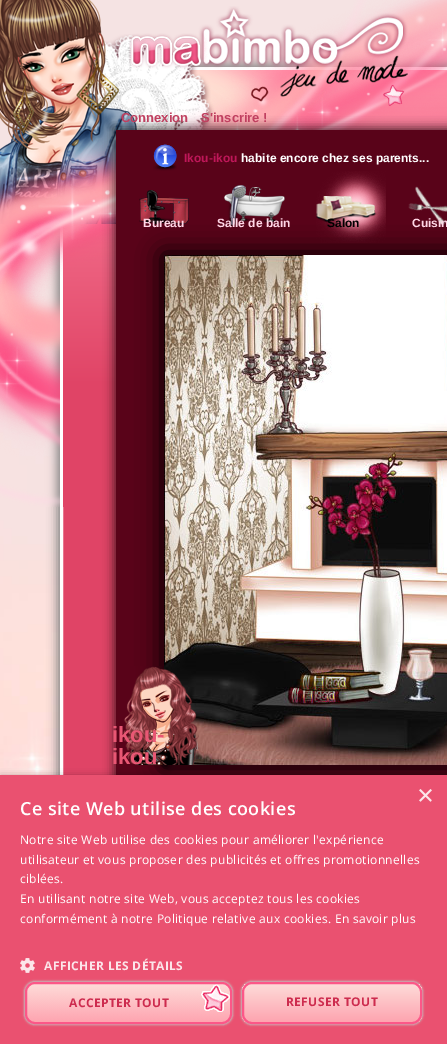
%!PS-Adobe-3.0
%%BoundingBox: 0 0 447 1044
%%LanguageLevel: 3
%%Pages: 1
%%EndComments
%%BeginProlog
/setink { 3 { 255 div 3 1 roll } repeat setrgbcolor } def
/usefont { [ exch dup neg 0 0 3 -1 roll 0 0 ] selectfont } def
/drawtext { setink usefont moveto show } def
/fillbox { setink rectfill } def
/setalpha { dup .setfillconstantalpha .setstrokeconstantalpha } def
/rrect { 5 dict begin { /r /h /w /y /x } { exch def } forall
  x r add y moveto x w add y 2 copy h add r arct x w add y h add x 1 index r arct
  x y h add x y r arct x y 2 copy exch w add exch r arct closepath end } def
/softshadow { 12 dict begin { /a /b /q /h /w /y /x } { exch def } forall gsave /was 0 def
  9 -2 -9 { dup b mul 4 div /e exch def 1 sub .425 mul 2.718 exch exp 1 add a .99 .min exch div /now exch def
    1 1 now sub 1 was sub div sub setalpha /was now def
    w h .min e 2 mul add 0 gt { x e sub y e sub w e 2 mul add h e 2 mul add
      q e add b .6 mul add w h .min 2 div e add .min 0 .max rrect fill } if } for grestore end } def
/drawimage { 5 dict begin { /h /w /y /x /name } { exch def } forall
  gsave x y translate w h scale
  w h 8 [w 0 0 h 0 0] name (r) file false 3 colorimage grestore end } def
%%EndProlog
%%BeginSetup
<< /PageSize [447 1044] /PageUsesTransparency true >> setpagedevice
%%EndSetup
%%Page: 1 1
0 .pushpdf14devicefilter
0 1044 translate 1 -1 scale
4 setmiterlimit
0 0 447 1044 245 227 227 fillbox
(assets/img1.rgb) 0 48 447 727 drawimage
128 128 128 setink
57 64 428 816 23 5 1 softshadow
gsave 63 70 moveto 447 70 lineto 447 775 lineto 63 775 lineto closepath clip newpath
<< /ShadingType 2 /ColorSpace /DeviceRGB /Coords [63 874 63 70] /Extend [true true] /Function << /FunctionType 3 /Domain [0 1] /Functions [<< /FunctionType 2 /Domain [0 1] /C0 [0.878 0.267 0.4] /C1 [0.878 0.267 0.4] /N 1 >> << /FunctionType 2 /Domain [0 1] /C0 [0.878 0.267 0.4] /C1 [1 0.549 0.647] /N 1 >>] /Bounds [0.61] /Encode [0 1 0 1] >> >> shfill grestore
255 255 255 setink
3 setlinewidth
61.5 68.5 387 807 rectstroke
(assets/img5.rgb) 87 34 360 96 drawimage
(assets/img3.rgb) 0 0 137 224 drawimage
(assets/img4.rgb) 0 0 447 507 drawimage
(assets/img2.rgb) 129 6 279 91 drawimage
0 0 0 setink
113 127 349 732 0 5 0.6 softshadow
(Connexion) 121 122 /LiberationSans-Bold 13 192 64 96 drawtext
(S'inscrire !) 201 122 /LiberationSans-Bold 13 192 64 96 drawtext
116 130 331 645 89 3 25 fillbox
(assets/img6.rgb) 153 144 24 27 drawimage
(Ikou-ikou) 184 162 /LiberationSans-Bold 12 191 23 89 drawtext
(habite encore chez ses parents...) 241 162 /LiberationSans-Bold 12 255 255 255 drawtext
(assets/img7.rgb) 139 190 50 35 drawimage
(assets/img8.rgb) 224 185 61 41 drawimage
(assets/img9.rgb) 316 171 70 72 drawimage
(assets/img10.rgb) 408 186 39 40 drawimage
0 0 0 setink
162 253 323 514 0 12.5 1 softshadow
(Bureau) 143 227 /LiberationSans-Bold 12 255 214 229 drawtext
(Salle de bain) 217 227 /LiberationSans-Bold 12 255 214 229 drawtext
(Salon) 327 227 /LiberationSans-Bold 12 0 0 0 drawtext
(Cuisin) 412 227 /LiberationSans-Bold 12 255 214 229 drawtext
(assets/img11.rgb) 164 255 283 510 drawimage
0 0 0 setink
165 704 2 62 0 4 1 softshadow
(assets/img12.rgb) 123 666 76 99 drawimage
(ikou-) 112 742 /LiberationSans-Bold 22 233 87 116 drawtext
(ikou) 112 764 /LiberationSans-Bold 22 233 87 116 drawtext
0 0 0 setink
1 777 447 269 0 4 0.35 softshadow
0 775 447 269 234 81 112 fillbox
(×) 417 805 /LiberationSans-Regular 29 252 229 234 drawtext
/OpenSans-SemiBold 18 usefont
255 255 255 setink
20 815 moveto 0.4 0 (Ce site Web utilise des cookies) ashow
/OpenSans-Regular 12 usefont
20 844 moveto 0.3 0 (Notre site Web utilise des cookies pour améliorer l'expérience) ashow
20 864 moveto 0.3 0 (utilisateur et vous proposer des publicités et offres promotionnelles) ashow
20 883 moveto 0.3 0 (ciblées.) ashow
20 903 moveto 0.3 0 (En utilisant notre site Web, vous acceptez tous les cookies) ashow
20 923 moveto 0.3 0 (conformément à notre Politique relative aux cookies. En savoir plus) ashow
(assets/img13.rgb) 20 958 15 15 drawimage
/OpenSans-Bold 12 usefont
252 229 234 setink
44 970 moveto 0.4 0 (AFFICHER LES DÉTAILS) ashow
191 191 191 setink
24 981 209 44 11 1 1 softshadow
(assets/img14.rgb) 27 984 203 38 drawimage
252 87 136 setink
2 setlinewidth
26 983 205 40 9 rrect stroke
205 43 78 setink
69 1007 moveto 0.4 0 (ACCEPTER TOUT) ashow
191 191 191 setink
241 981 182 44 11 1 1 softshadow
gsave
242 982 180 42 10 rrect clip newpath
gsave 242 984 moveto 422 984 lineto 422 1022 lineto 242 1022 lineto closepath clip newpath
<< /ShadingType 2 /ColorSpace /DeviceRGB /Coords [332 984 332 1022] /Extend [true true] /Function << /FunctionType 2 /Domain [0 1] /C0 [0.992 0.859 0.847] /C1 [0.996 0.643 0.69] /N 1 >> >> shfill grestore
grestore
252 87 136 setink
243 983 178 40 9 rrect stroke
205 43 78 setink
286 1006 moveto 0.4 0 (REFUSER TOUT) ashow
.poppdf14devicefilter showpage
%%EOF
